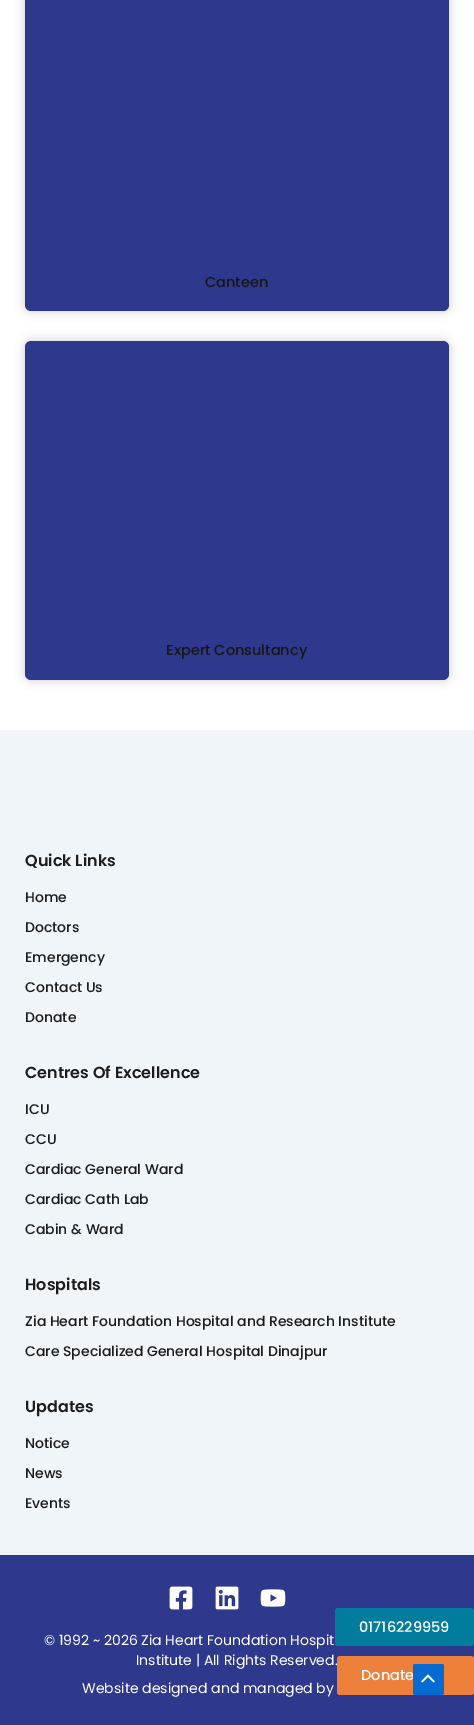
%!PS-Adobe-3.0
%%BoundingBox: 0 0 474 1725
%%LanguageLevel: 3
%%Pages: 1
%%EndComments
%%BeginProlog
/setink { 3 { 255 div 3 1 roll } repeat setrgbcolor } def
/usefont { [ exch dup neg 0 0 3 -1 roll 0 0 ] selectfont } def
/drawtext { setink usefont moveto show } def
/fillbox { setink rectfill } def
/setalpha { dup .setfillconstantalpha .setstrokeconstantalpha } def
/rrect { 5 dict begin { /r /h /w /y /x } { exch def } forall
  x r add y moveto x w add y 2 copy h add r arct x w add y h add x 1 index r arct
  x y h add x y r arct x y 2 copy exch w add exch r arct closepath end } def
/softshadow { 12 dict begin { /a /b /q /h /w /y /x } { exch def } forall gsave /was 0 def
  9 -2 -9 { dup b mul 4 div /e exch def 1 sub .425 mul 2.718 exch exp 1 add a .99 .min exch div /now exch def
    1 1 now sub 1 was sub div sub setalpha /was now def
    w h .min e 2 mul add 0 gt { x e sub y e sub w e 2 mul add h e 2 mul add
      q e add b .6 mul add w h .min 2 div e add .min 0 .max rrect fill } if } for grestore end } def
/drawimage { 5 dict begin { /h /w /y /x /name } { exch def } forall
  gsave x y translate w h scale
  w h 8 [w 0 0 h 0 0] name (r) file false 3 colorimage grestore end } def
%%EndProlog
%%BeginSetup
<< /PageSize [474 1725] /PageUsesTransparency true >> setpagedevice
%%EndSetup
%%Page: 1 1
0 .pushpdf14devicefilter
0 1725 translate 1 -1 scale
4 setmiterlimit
0 0 474 1725 255 255 255 fillbox
0 0 0 setink
25 -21 424 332 6 5 0.2 softshadow
46 56 141 setink
25 -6 424 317 6 rrect fill
(Canteen) 205 287 /Poppins-Medium 14.5 22 22 22 drawtext
0 0 0 setink
25 341 424 339 6 5 0.2 softshadow
46 56 141 setink
25 341 424 339 6 rrect fill
(Expert Consultancy) 166 655 /Poppins-Medium 14.5 22 22 22 drawtext
0 730 474 825 240 245 250 fillbox
(Quick Links) 25 866 /Poppins-SemiBold 16 28 28 28 drawtext
(Home) 25 902 /Poppins-Medium 14 28 28 28 drawtext
(Doctors) 25 932 /Poppins-Medium 14 28 28 28 drawtext
(Emergency) 25 962 /Poppins-Medium 14 28 28 28 drawtext
(Contact Us) 25 992 /Poppins-Medium 14 28 28 28 drawtext
(Donate) 25 1022 /Poppins-Medium 14 28 28 28 drawtext
(Centres Of Excellence) 25 1078 /Poppins-SemiBold 16 28 28 28 drawtext
(ICU) 25 1114 /Poppins-Medium 14 28 28 28 drawtext
(CCU) 25 1144 /Poppins-Medium 14 28 28 28 drawtext
(Cardiac General Ward) 25 1174 /Poppins-Medium 14 28 28 28 drawtext
(Cardiac Cath Lab) 25 1204 /Poppins-Medium 14 28 28 28 drawtext
(Cabin & Ward) 25 1234 /Poppins-Medium 14 28 28 28 drawtext
(Hospitals) 25 1290 /Poppins-SemiBold 16 28 28 28 drawtext
(Zia Heart Foundation Hospital and Research Institute) 25 1326 /Poppins-Medium 14 28 28 28 drawtext
(Care Specialized General Hospital Dinajpur) 25 1356 /Poppins-Medium 14 28 28 28 drawtext
(Updates) 25 1412 /Poppins-SemiBold 16 28 28 28 drawtext
(Notice) 25 1448 /Poppins-Medium 14 28 28 28 drawtext
(News) 25 1478 /Poppins-Medium 14 28 28 28 drawtext
(Events) 25 1508 /Poppins-Medium 14 28 28 28 drawtext
0 1555 474 170 46 56 141 fillbox
(assets/img1.rgb) 169 1586 24 24 drawimage
(assets/img2.rgb) 215 1586 24 24 drawimage
(assets/img3.rgb) 260 1589 26 18 drawimage
(© 1992 ~ 2026 Zia Heart Foundation Hospit) 44 1645 /Poppins-Regular 14 255 255 255 drawtext
(Institute | All Rights Reserved.) 136 1665 /Poppins-Regular 14 255 255 255 drawtext
(Website designed and managed by) 82 1693 /Poppins-Regular 14 255 255 255 drawtext
0 124 157 setink
335 1608 139 38 3 rrect fill
(01716229959) 359 1632 /Poppins-Medium 14.5 255 255 255 drawtext
237 128 58 setink
337 1656 137 39 3 rrect fill
(Donate) 361 1680 /Poppins-Medium 14.5 255 255 255 drawtext
4 107 210 setink
413 1664 31 31 2 rrect fill
(assets/img4.rgb) 421 1674 14 9 drawimage
.poppdf14devicefilter showpage
%%EOF
